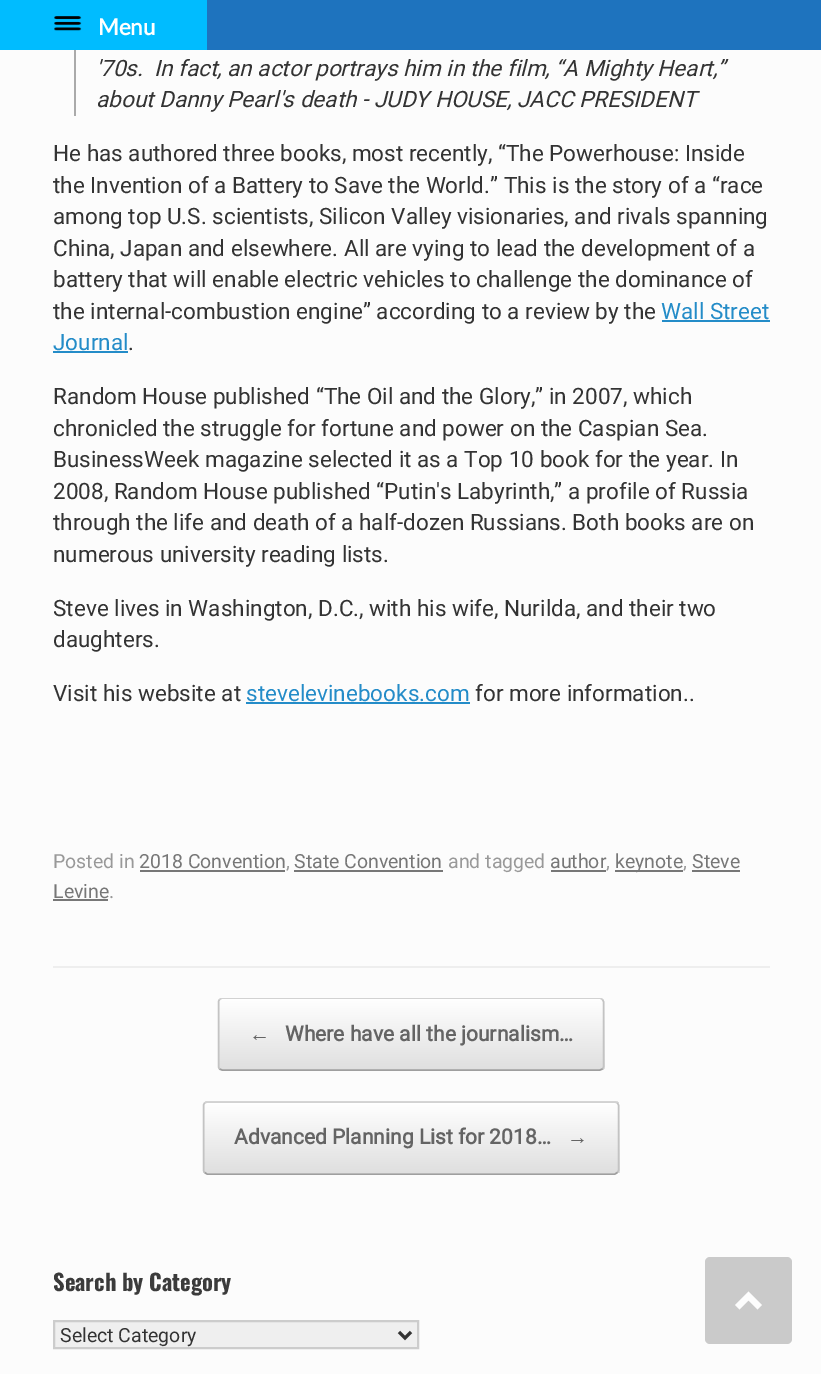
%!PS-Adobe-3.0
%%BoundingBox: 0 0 821 1374
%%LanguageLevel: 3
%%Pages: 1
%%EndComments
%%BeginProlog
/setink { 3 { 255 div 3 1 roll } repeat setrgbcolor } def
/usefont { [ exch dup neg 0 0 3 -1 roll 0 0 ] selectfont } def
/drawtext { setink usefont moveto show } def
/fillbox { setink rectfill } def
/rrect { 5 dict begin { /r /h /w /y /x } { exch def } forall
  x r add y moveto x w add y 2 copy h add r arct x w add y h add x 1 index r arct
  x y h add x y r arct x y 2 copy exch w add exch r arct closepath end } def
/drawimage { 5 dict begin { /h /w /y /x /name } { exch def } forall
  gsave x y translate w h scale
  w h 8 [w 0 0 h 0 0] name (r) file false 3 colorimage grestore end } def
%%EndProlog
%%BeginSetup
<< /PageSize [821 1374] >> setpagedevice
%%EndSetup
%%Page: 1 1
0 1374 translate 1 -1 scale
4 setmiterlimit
0 0 821 1374 252 252 252 fillbox
207 0 614 50 30 115 190 fillbox
0 0 207 50 0 188 255 fillbox
(assets/img1.rgb) 54 16 28 15 drawimage
(Menu) 98 35 /Lato-Bold 22.5 255 255 255 drawtext
53 966 717 2 238 238 238 fillbox
74 50 2 66 170 170 170 fillbox
('70s.  In fact, an actor portrays him in the film, “A Mighty Heart,”) 96 76 /Roboto-Italic 22.5 51 51 51 drawtext
(about Danny Pearl's death - JUDY HOUSE, JACC PRESIDENT) 96 107 /Roboto-Italic 22.5 51 51 51 drawtext
(He has authored three books, most recently, “The Powerhouse: Inside) 53 161 /Roboto-Regular 22.5 51 51 51 drawtext
(the Invention of a Battery to Save the World.” This is the story of a “race) 53 193 /Roboto-Regular 22.5 51 51 51 drawtext
(among top U.S. scientists, Silicon Valley visionaries, and rivals spanning) 53 224 /Roboto-Regular 22.5 51 51 51 drawtext
(China, Japan and elsewhere. All are vying to lead the development of a) 53 256 /Roboto-Regular 22.5 51 51 51 drawtext
(battery that will enable electric vehicles to challenge the dominance of) 53 287 /Roboto-Regular 22.5 51 51 51 drawtext
(the internal-combustion engine” according to a review by the) 53 319 /Roboto-Regular 22.5 51 51 51 drawtext
(Wall Street) 661 319 /Roboto-Regular 22.5 36 140 200 drawtext
662 320 108 2 36 140 200 fillbox
(Journal) 53 350 /Roboto-Regular 22.5 36 140 200 drawtext
53 351 75 2 36 140 200 fillbox
(.) 128 350 /Roboto-Regular 22.5 51 51 51 drawtext
(Random House published “The Oil and the Glory,” in 2007, which) 53 404 /Roboto-Regular 22.5 51 51 51 drawtext
(chronicled the struggle for fortune and power on the Caspian Sea.) 53 436 /Roboto-Regular 22.5 51 51 51 drawtext
(BusinessWeek magazine selected it as a Top 10 book for the year. In) 53 467 /Roboto-Regular 22.5 51 51 51 drawtext
(2008, Random House published “Putin's Labyrinth,” a profile of Russia) 53 499 /Roboto-Regular 22.5 51 51 51 drawtext
(through the life and death of a half-dozen Russians. Both books are on) 53 530 /Roboto-Regular 22.5 51 51 51 drawtext
(numerous university reading lists.) 53 562 /Roboto-Regular 22.5 51 51 51 drawtext
(Steve lives in Washington, D.C., with his wife, Nurilda, and their two) 53 616 /Roboto-Regular 22.5 51 51 51 drawtext
(daughters.) 53 647 /Roboto-Regular 22.5 51 51 51 drawtext
(Visit his website at) 53 701 /Roboto-Regular 22.5 51 51 51 drawtext
(stevelevinebooks.com) 246 701 /Roboto-Regular 22.5 36 140 200 drawtext
246 702 224 2 36 140 200 fillbox
(for more information..) 475 701 /Roboto-Regular 22.5 51 51 51 drawtext
(Posted in) 53 868 /Roboto-Regular 19.5 153 153 153 drawtext
(2018 Convention) 139 868 /Roboto-Regular 19.5 119 119 119 drawtext
140 870 145 2 119 119 119 fillbox
(,) 286 868 /Roboto-Regular 19.5 153 153 153 drawtext
(State Convention) 294 868 /Roboto-Regular 19.5 119 119 119 drawtext
294 870 149 2 119 119 119 fillbox
(and tagged) 448 868 /Roboto-Regular 19.5 153 153 153 drawtext
(author) 550 868 /Roboto-Regular 19.5 119 119 119 drawtext
551 870 55 2 119 119 119 fillbox
(,) 606 868 /Roboto-Regular 19.5 153 153 153 drawtext
615 870 68 2 119 119 119 fillbox
(keynote) 615 868 /Roboto-Regular 19.5 119 119 119 drawtext
(,) 683 868 /Roboto-Regular 19.5 153 153 153 drawtext
(Steve) 692 868 /Roboto-Regular 19.5 119 119 119 drawtext
692 870 48 2 119 119 119 fillbox
(Levine) 53 898 /Roboto-Regular 19.5 119 119 119 drawtext
53 899 55 2 119 119 119 fillbox
(.) 109 898 /Roboto-Regular 19.5 153 153 153 drawtext
gsave
218 998 387 73 5 rrect clip newpath
gsave 218 999 moveto 605 999 lineto 605 1070 lineto 218 1070 lineto closepath clip newpath
<< /ShadingType 2 /ColorSpace /DeviceRGB /Coords [219 1070 219 999] /Extend [true true] /Function << /FunctionType 2 /Domain [0 1] /C0 [0.875 0.875 0.875] /C1 [1 1 1] /N 1 >> >> shfill grestore
gsave 218 1070 moveto 605 1070 lineto 605 1071 lineto 218 1071 lineto closepath clip newpath
<< /ShadingType 2 /ColorSpace /DeviceRGB /Coords [219 1140 219 1070] /Extend [true true] /Function << /FunctionType 2 /Domain [0 1] /C0 [0.875 0.875 0.875] /C1 [1 1 1] /N 1 >> >> shfill grestore
grestore
gsave
53 998 717 207 rectclip
210 210 210 setink
1.5 setlinewidth
219.5 999.5 moveto 222 998 lineto 600 998 lineto 602.5 999.5 lineto stroke
grestore
195 195 195 setink
1.5 setlinewidth
602.5 999.5 moveto 603.5 1001.5 lineto 603.5 1067 lineto 602.5 1069 lineto stroke
159 159 159 setink
602.5 1069 moveto 600 1070 lineto 222 1070 lineto 219.5 1069 lineto stroke
195 195 195 setink
219.5 1069 moveto 218.5 1067 lineto 218.5 1001.5 lineto 219.5 999.5 lineto stroke
(←) 249 1041 /LiberationSerif-Bold 21 100 100 100 drawtext
(Where have all the journalism…) 285 1041 /Roboto-Bold 21 100 100 100 drawtext
gsave
203 1101 417 74 5 rrect clip newpath
gsave 203 1101 moveto 620 1101 lineto 620 1103 lineto 203 1103 lineto closepath clip newpath
<< /ShadingType 2 /ColorSpace /DeviceRGB /Coords [204 1103 204 1032] /Extend [true true] /Function << /FunctionType 2 /Domain [0 1] /C0 [0.875 0.875 0.875] /C1 [1 1 1] /N 1 >> >> shfill grestore
gsave 203 1103 moveto 620 1103 lineto 620 1173 lineto 203 1173 lineto closepath clip newpath
<< /ShadingType 2 /ColorSpace /DeviceRGB /Coords [204 1173 204 1103] /Extend [true true] /Function << /FunctionType 2 /Domain [0 1] /C0 [0.875 0.875 0.875] /C1 [1 1 1] /N 1 >> >> shfill grestore
gsave 203 1173 moveto 620 1173 lineto 620 1175 lineto 203 1175 lineto closepath clip newpath
<< /ShadingType 2 /ColorSpace /DeviceRGB /Coords [204 1244 204 1173] /Extend [true true] /Function << /FunctionType 2 /Domain [0 1] /C0 [0.875 0.875 0.875] /C1 [1 1 1] /N 1 >> >> shfill grestore
grestore
210 210 210 setink
204.5 1103 moveto 207 1102 lineto 615 1102 lineto 617.5 1103 lineto stroke
195 195 195 setink
617.5 1103 moveto 618.5 1105 lineto 618.5 1170.5 lineto 617.5 1172.5 lineto stroke
159 159 159 setink
617.5 1172.5 moveto 615 1174 lineto 207 1174 lineto 204.5 1172.5 lineto stroke
195 195 195 setink
204.5 1172.5 moveto 203.5 1170.5 lineto 203.5 1105 lineto 204.5 1103 lineto stroke
(Advanced Planning List for 2018…) 234 1144 /Roboto-Bold 21 100 100 100 drawtext
(→) 567 1144 /LiberationSerif-Bold 21 100 100 100 drawtext
(Search by Category) 53 1291 /Oswald-Bold 22.5 59 59 59 drawtext
239 239 239 setink
54 1321 moveto 418 1321 lineto 418 1348 lineto 54 1348 lineto closepath gsave fill grestore
204 204 204 setink
2 setlinewidth
stroke
51 51 51 setink
3 setlinewidth
399 1332 moveto 405 1338 lineto 411 1332 lineto stroke
(Select Category) 60 1342 /Roboto-Regular 19.5 51 51 51 drawtext
202 202 202 setink
705 1257 87 87 5 rrect fill
253 253 253 setink
762 1305 moveto 748.5 1291.5 lineto 735 1305 lineto 739.5 1309.5 lineto 748.5 1300.5 lineto 757.5 1309.5 lineto closepath fill
showpage
%%EOF
